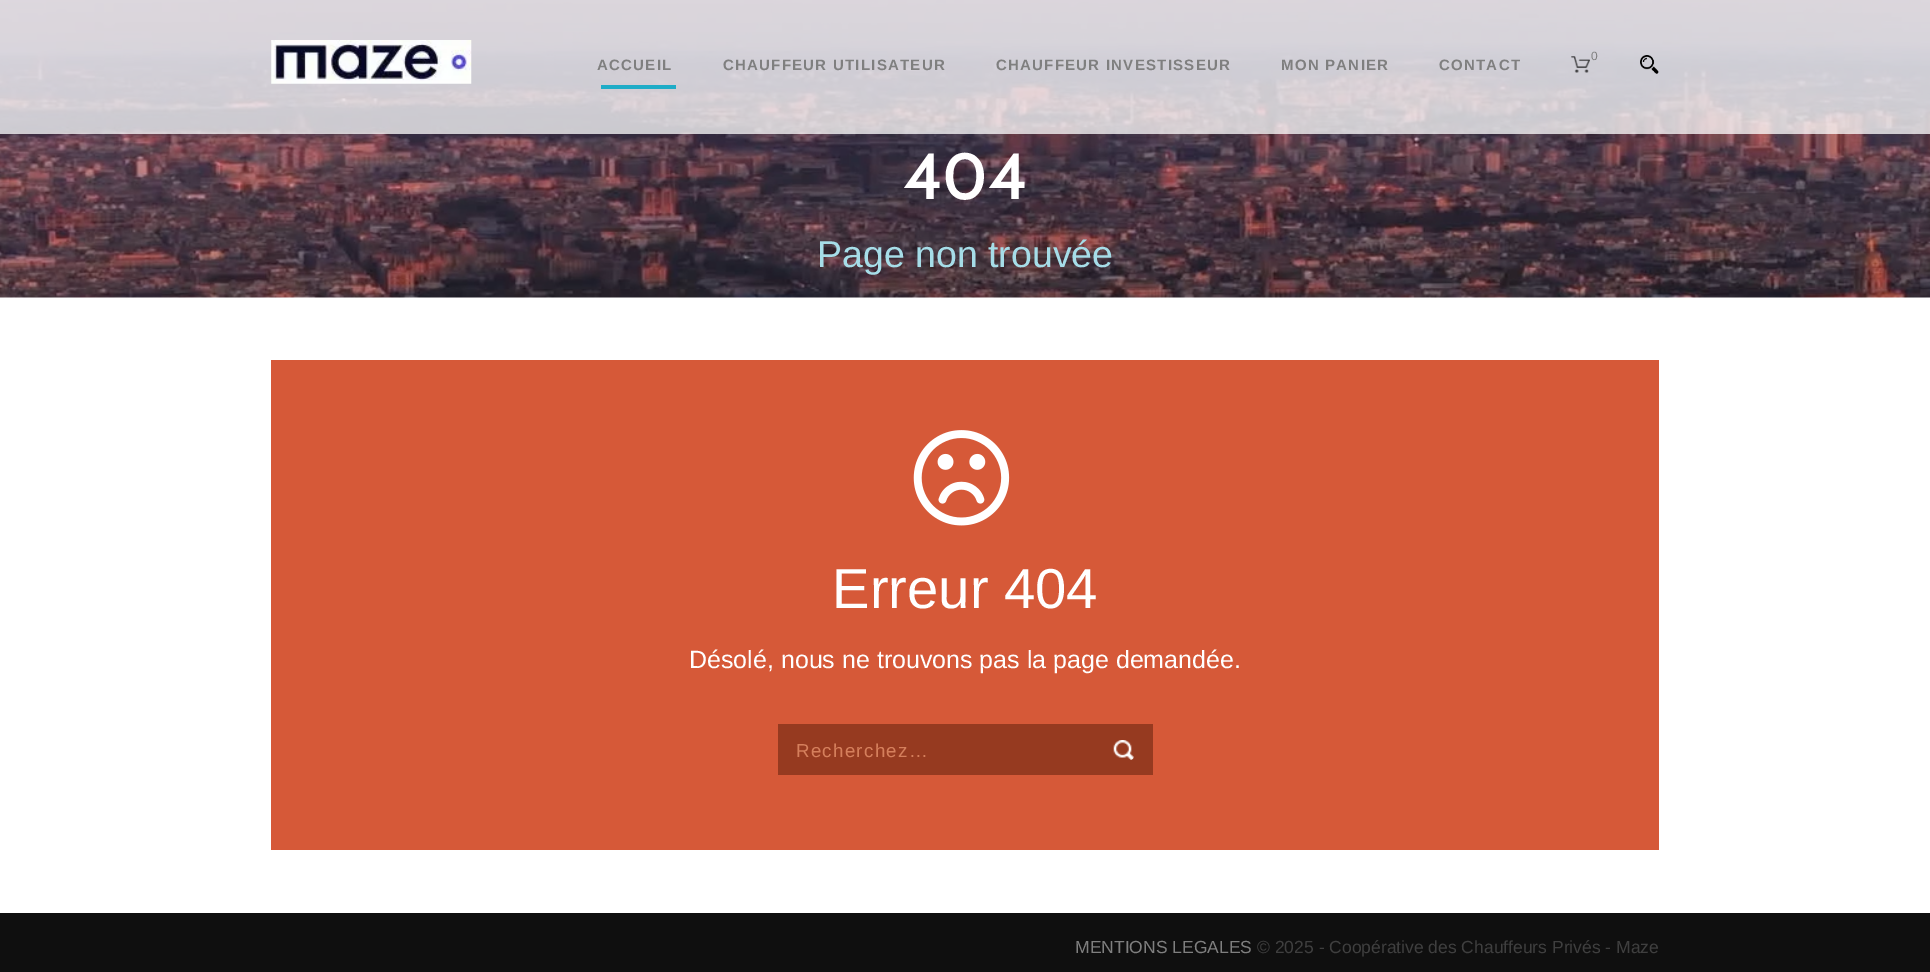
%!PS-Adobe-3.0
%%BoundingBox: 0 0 1930 972
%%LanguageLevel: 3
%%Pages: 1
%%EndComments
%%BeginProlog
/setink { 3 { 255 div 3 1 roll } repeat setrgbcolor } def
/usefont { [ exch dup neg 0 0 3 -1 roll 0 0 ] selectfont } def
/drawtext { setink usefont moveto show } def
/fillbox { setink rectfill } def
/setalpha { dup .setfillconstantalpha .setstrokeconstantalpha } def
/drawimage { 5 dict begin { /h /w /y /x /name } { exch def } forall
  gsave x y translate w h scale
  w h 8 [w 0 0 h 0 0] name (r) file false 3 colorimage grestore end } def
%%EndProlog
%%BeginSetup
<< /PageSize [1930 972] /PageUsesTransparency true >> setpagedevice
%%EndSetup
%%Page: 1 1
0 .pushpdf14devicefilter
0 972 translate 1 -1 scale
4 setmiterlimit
0 0 1930 972 255 255 255 fillbox
(assets/img4.rgb) 0 0 1930 298 drawimage
0.75 setalpha
0 0 1930 134 255 255 255 fillbox
1 setalpha
(assets/img1.rgb) 271 40 201 44 drawimage
/LiberationSans-Bold 15 usefont
127 127 127 setink
597 70 moveto 1.25 0 (ACCUEIL) ashow
723 70 moveto 1.25 0 (CHAUFFEUR UTILISATEUR) ashow
996 70 moveto 1.25 0 (CHAUFFEUR INVESTISSEUR) ashow
1281 70 moveto 1.25 0 (MON PANIER) ashow
1439 70 moveto 1.25 0 (CONTACT) ashow
(assets/img2.rgb) 1571 56 19 17 drawimage
(0) 1591 60 /LiberationSans-Regular 12 127 127 127 drawtext
(assets/img3.rgb) 1640 55 19 19 drawimage
601 85 75 4 30 172 199 fillbox
(404) 903 199 /Cabin-SemiBold 65 255 255 255 drawtext
(Page non trouvée) 817 267 /LiberationSans-Regular 37.5 166 221 232 drawtext
271 360 1388 490 214 89 56 fillbox
(assets/img5.rgb) 913 430 97 96 drawimage
(Erreur 404) 832 608 /LiberationSans-Regular 56.25 255 255 255 drawtext
(Désolé, nous ne trouvons pas la page demandée.) 689 668 /LiberationSans-Regular 25 255 255 255 drawtext
778 724 375 51 150 58 32 fillbox
/LiberationSans-Regular 18.75 usefont
213 127 92 setink
796 757 moveto 1.25 0 (Recherchez…) ashow
(assets/img6.rgb) 1113 740 21 20 drawimage
0 913 1930 59 15 15 15 fillbox
(MENTIONS LEGALES) 1075 953 /LiberationSans-Regular 17.5 127 127 127 drawtext
(© 2025 - Coopérative des Chauffeurs Privés - Maze) 1257 953 /LiberationSans-Regular 17.5 63 63 63 drawtext
.poppdf14devicefilter showpage
%%EOF
